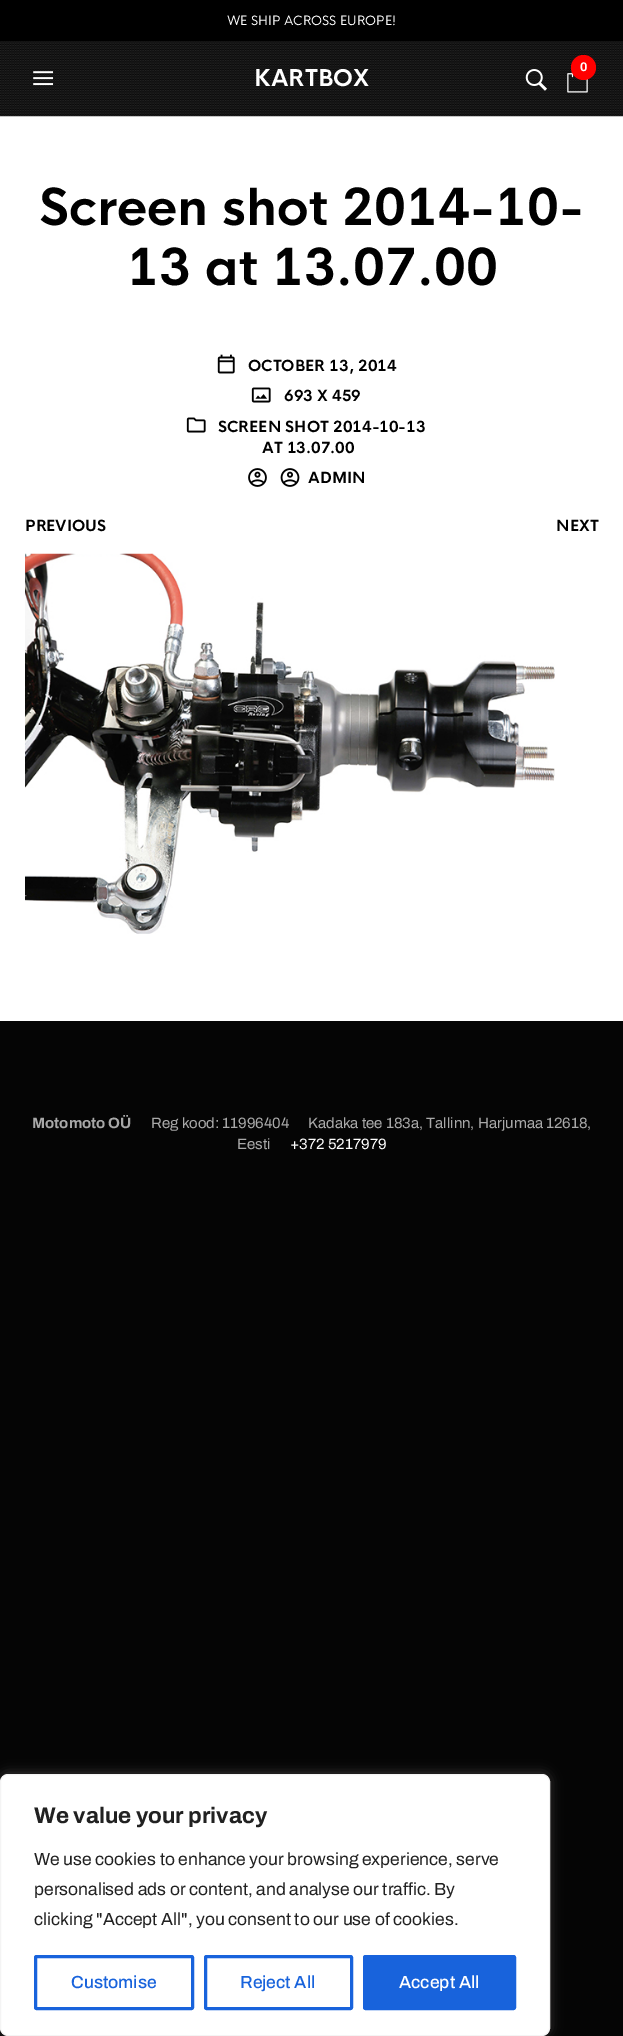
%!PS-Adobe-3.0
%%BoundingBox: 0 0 623 2036
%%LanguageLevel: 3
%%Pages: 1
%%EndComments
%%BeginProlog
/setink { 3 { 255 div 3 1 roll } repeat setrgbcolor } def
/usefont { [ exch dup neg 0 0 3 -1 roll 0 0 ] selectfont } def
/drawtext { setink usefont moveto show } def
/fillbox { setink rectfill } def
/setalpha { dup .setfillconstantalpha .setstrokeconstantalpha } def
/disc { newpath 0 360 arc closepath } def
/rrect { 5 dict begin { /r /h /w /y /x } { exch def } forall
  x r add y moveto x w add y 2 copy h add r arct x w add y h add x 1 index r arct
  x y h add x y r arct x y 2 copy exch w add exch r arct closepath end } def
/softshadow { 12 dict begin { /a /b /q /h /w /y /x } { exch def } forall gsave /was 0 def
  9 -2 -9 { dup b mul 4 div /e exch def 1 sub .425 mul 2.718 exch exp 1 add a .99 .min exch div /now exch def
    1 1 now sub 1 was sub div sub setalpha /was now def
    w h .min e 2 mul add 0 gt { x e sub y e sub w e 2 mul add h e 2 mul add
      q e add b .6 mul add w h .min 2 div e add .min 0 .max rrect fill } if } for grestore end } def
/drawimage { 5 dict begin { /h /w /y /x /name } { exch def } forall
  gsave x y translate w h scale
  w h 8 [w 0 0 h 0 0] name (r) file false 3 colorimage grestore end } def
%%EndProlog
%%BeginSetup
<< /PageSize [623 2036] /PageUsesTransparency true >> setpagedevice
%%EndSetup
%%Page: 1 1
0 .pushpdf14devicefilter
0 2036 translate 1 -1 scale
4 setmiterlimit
0 0 623 2036 5 5 5 fillbox
0 116 623 905 255 255 255 fillbox
(assets/img1.rgb) 0 41 623 76 drawimage
0 0 623 41 0 0 0 fillbox
(WE SHIP ACROSS EUROPE!) 227 25 /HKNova-Regular 12.5 255 255 255 drawtext
(assets/img2.rgb) 567 71 21 22 drawimage
255 0 0 setink
583.5 67.5 12.5 disc fill
(0) 580 71 /Archivo-Bold 12.5 255 255 255 drawtext
(assets/img3.rgb) 525 69 22 22 drawimage
(assets/img4.rgb) 33 71 21 15 drawimage
(KARTBOX) 254 86 /HKNova-Bold 22.5 255 255 255 drawtext
(Screen shot 2014-10-) 39 225 /HKNova-Bold 49.75 0 0 0 drawtext
(13 at 13.07.00) 127 285 /HKNova-Bold 49.75 0 0 0 drawtext
(assets/img5.rgb) 217 354 18 20 drawimage
(OCTOBER 13, 2014) 248 371 /HKNova-Bold 15 0 0 0 drawtext
(assets/img6.rgb) 251 387 20 16 drawimage
(693 X 459) 284 401 /HKNova-Bold 15 0 0 0 drawtext
(assets/img7.rgb) 186 417 20 16 drawimage
(SCREEN SHOT 2014-10-13) 218 432 /HKNova-Bold 15 0 0 0 drawtext
(AT 13.07.00) 262 453 /HKNova-Bold 15 0 0 0 drawtext
(assets/img8.rgb) 248 468 19 19 drawimage
(assets/img9.rgb) 280 468 20 19 drawimage
(ADMIN) 308 483 /HKNova-Bold 15 0 0 0 drawtext
(PREVIOUS) 25 531 /HKNova-Bold 15 0 0 0 drawtext
(NEXT) 556 531 /HKNova-Bold 15 0 0 0 drawtext
(assets/img10.rgb) 25 553 530 381 drawimage
(Motomoto OÜ) 32 1128 /Archivo-Bold 15 168 168 168 drawtext
(Reg kood: 11996404      Kadaka tee 183a, Tallinn, Harjumaa 12618,) 151 1128 /Archivo-Regular 15 168 168 168 drawtext
(Eesti) 237 1149 /Archivo-Regular 15 168 168 168 drawtext
(+372 5217979) 290 1149 /Archivo-Regular 15 255 255 255 drawtext
172 171 171 setink
0 1773 550 262 8 6 0.3 softshadow
255 255 255 setink
0.5 1774.5 549 261 7.5 rrect gsave fill grestore
244 244 244 setink
stroke
(We value your privacy) 34 1823 /Archivo-Bold 22.5 33 33 33 drawtext
(We use cookies to enhance your browsing experience, serve) 34 1865 /Archivo-Regular 17.5 33 33 33 drawtext
(personalised ads or content, and analyse our traffic. By) 34 1895 /Archivo-Regular 17.5 33 33 33 drawtext
(clicking "Accept All", you consent to our use of cookies.) 34 1925 /Archivo-Regular 17.5 33 33 33 drawtext
24 99 220 setink
3 setlinewidth
35.5 1956.5 157 52 1 rrect stroke
(Customise) 71 1988 /Archivo-Medium 17.5 24 99 220 drawtext
205.5 1956.5 146 52 1 rrect stroke
(Reject All) 240 1988 /Archivo-Medium 17.5 24 99 220 drawtext
364.5 1956.5 150 52 1 rrect gsave fill grestore
stroke
(Accept All) 399 1988 /Archivo-Medium 17.5 255 255 255 drawtext
.poppdf14devicefilter showpage
%%EOF
